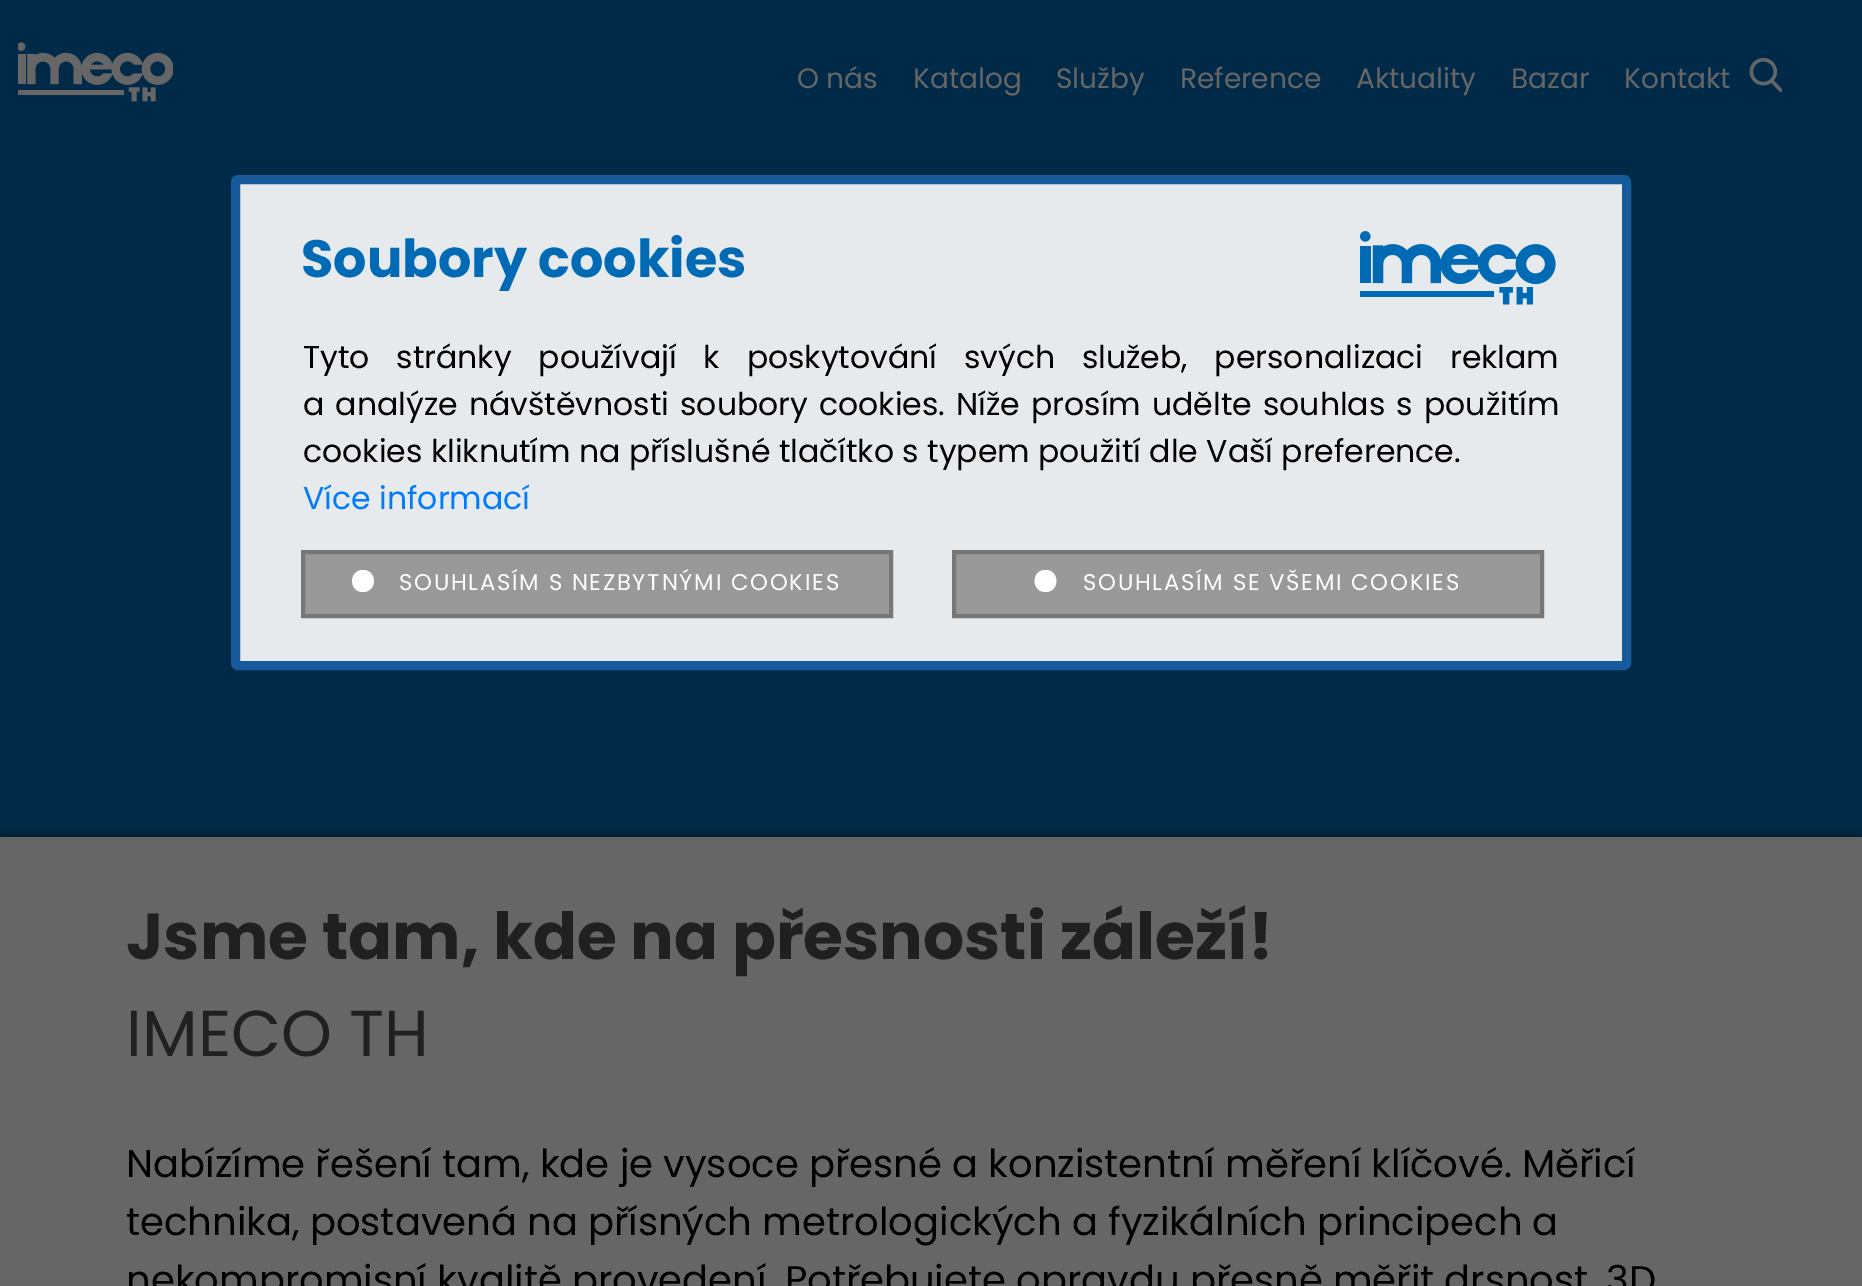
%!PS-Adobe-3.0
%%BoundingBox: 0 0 1862 1286
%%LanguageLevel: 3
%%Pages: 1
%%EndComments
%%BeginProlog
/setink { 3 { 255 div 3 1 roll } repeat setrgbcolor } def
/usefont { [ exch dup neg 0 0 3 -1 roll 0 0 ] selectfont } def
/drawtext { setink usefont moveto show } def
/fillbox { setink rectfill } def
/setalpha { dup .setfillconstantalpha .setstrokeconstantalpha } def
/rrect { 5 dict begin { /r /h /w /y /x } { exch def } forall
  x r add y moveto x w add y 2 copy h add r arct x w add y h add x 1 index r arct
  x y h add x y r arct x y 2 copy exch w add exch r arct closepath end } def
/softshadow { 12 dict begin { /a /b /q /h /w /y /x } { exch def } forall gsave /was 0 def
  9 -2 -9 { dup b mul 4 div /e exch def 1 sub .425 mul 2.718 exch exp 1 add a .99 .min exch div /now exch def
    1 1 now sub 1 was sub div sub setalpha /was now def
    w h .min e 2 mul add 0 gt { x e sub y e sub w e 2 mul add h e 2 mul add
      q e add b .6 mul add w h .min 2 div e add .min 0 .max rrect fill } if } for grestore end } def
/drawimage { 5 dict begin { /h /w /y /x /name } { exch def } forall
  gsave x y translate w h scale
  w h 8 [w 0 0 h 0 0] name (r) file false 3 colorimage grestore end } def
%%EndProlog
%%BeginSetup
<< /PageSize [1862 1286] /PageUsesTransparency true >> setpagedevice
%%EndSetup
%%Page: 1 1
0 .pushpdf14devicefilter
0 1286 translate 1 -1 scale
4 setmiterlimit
0 0 1862 1286 0 42 72 fillbox
(assets/img1.rgb) 18 42 155 60 drawimage
(O nás) 797 88 /Poppins-Regular 28 102 102 102 drawtext
(Katalog) 913 88 /Poppins-Regular 28 102 102 102 drawtext
(Služby) 1056 88 /Poppins-Regular 28 102 102 102 drawtext
(Reference) 1180 88 /Poppins-Regular 28 102 102 102 drawtext
(Aktuality) 1356 88 /Poppins-Regular 28 102 102 102 drawtext
(Bazar) 1511 88 /Poppins-Regular 28 102 102 102 drawtext
(Kontakt) 1624 88 /Poppins-Regular 28 102 102 102 drawtext
(assets/img2.rgb) 1749 58 33 34 drawimage
0 0 0 setink
0 833 1862 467 0 4.5 0.29 softshadow
0 837 1862 449 102 102 102 fillbox
(Jsme tam, kde na přesnosti záleží!) 126 959 /Poppins-Bold 64.75 32 32 32 drawtext
(IMECO TH) 126 1056 /Poppins-Regular 64.75 32 32 32 drawtext
(Nabízíme řešení tam, kde je vysoce přesné a konzistentní měření klíčové. Měřicí) 126 1177 /Poppins-Regular 38.5 0 0 0 drawtext
(technika, postavená na přísných metrologických a fyzikálních principech a) 126 1235 /Poppins-Regular 38.5 0 0 0 drawtext
(nekompromisní kvalitě provedení. Potřebujete opravdu přesně měřit drsnost, 3D) 126 1293 /Poppins-Regular 38.5 0 0 0 drawtext
230 234 237 setink
235.5 179.5 1391 486 2.5 rrect gsave fill grestore
22 90 155 setink
9 setlinewidth
stroke
(Soubory cookies) 301 277 /Poppins-Bold 52.5 0 106 180 drawtext
(assets/img3.rgb) 1360 231 196 74 drawimage
/Poppins-Regular 31.5 usefont
0 0 0 setink
303 368 moveto 18.5 0 32 (Tyto stránky používají k poskytování svých služeb, personalizaci reklam) widthshow
303 415 moveto 2.75 0 32 (a analýze návštěvnosti soubory cookies. Níže prosím udělte souhlas s použitím) widthshow
(cookies kliknutím na příslušné tlačítko s typem použití dle Vaší preference.) 303 462 /Poppins-Regular 31.5 0 0 0 drawtext
(Více informací) 303 509 /Poppins-Regular 31.5 0 123 255 drawtext
153 153 153 setink
303 552 moveto 891 552 lineto 891 616 lineto 303 616 lineto closepath gsave fill grestore
119 119 119 setink
4 setlinewidth
stroke
255 255 255 setink
363 570 moveto 348.5 570 348.5 592 363 592 curveto 377.5 592 377.5 570 363 570 curveto closepath fill
/Poppins-Regular 22.75 usefont
399 590 moveto 1.75 0 (SOUHLASÍM S NEZBYTNÝMI COOKIES) ashow
153 153 153 setink
954 552 moveto 1542 552 lineto 1542 616 lineto 954 616 lineto closepath gsave fill grestore
119 119 119 setink
stroke
255 255 255 setink
1045.5 570 moveto 1031 570 1031 592 1045.5 592 curveto 1060 592 1060 570 1045.5 570 curveto closepath fill
1083 590 moveto 1.75 0 (SOUHLASÍM SE VŠEMI COOKIES) ashow
.poppdf14devicefilter showpage
%%EOF
